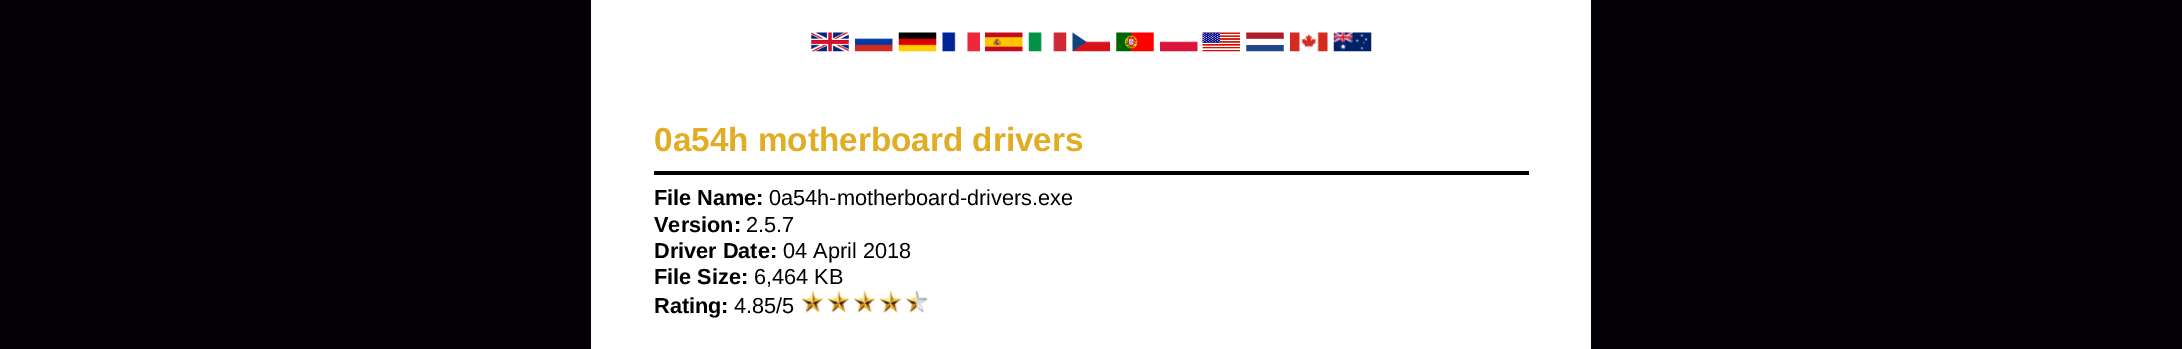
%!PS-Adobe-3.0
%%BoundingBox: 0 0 2182 349
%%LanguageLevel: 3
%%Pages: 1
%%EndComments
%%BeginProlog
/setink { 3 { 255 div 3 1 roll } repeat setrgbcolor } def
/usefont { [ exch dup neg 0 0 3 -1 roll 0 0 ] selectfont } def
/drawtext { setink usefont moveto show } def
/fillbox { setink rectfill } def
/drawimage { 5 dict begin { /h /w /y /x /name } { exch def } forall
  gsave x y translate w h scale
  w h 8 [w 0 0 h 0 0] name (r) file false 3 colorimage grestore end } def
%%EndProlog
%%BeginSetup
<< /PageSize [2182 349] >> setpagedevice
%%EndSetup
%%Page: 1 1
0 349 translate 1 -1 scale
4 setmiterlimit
0 0 2182 349 3 0 5 fillbox
591 0 1000 349 255 255 255 fillbox
(assets/img1.rgb) 811 32 38 20 drawimage
(assets/img2.rgb) 855 38 38 14 drawimage
(assets/img3.rgb) 898 32 39 20 drawimage
(assets/img4.rgb) 942 32 38 20 drawimage
(assets/img5.rgb) 985 32 38 20 drawimage
(assets/img6.rgb) 1028 32 39 20 drawimage
(assets/img7.rgb) 1072 32 38 20 drawimage
(assets/img8.rgb) 1116 32 38 20 drawimage
(assets/img9.rgb) 1160 41 38 11 drawimage
(assets/img10.rgb) 1202 32 38 20 drawimage
(assets/img11.rgb) 1246 32 38 20 drawimage
(assets/img12.rgb) 1290 32 38 20 drawimage
(assets/img13.rgb) 1333 32 39 20 drawimage
(0a54h motherboard drivers) 654 151 /LiberationSans-Bold 33.3 224 173 36 drawtext
654 171 875 4 3 0 5 fillbox
(File Name:) 654 205 /LiberationSans-Bold 21.7 0 0 0 drawtext
(0a54h-motherboard-drivers.exe) 769 205 /LiberationSans-Regular 21.7 0 0 0 drawtext
(Version:) 654 232 /LiberationSans-Bold 21.7 0 0 0 drawtext
(2.5.7) 746 232 /LiberationSans-Regular 21.7 0 0 0 drawtext
(Driver Date:) 654 258 /LiberationSans-Bold 21.7 0 0 0 drawtext
(04 April 2018) 783 258 /LiberationSans-Regular 21.7 0 0 0 drawtext
(File Size:) 654 284 /LiberationSans-Bold 21.7 0 0 0 drawtext
(6,464 KB) 754 284 /LiberationSans-Regular 21.7 0 0 0 drawtext
(Rating:) 654 313 /LiberationSans-Bold 21.7 0 0 0 drawtext
(4.85/5) 734 313 /LiberationSans-Regular 21.7 0 0 0 drawtext
(assets/img14.rgb) 801 290 127 23 drawimage
showpage
%%EOF
